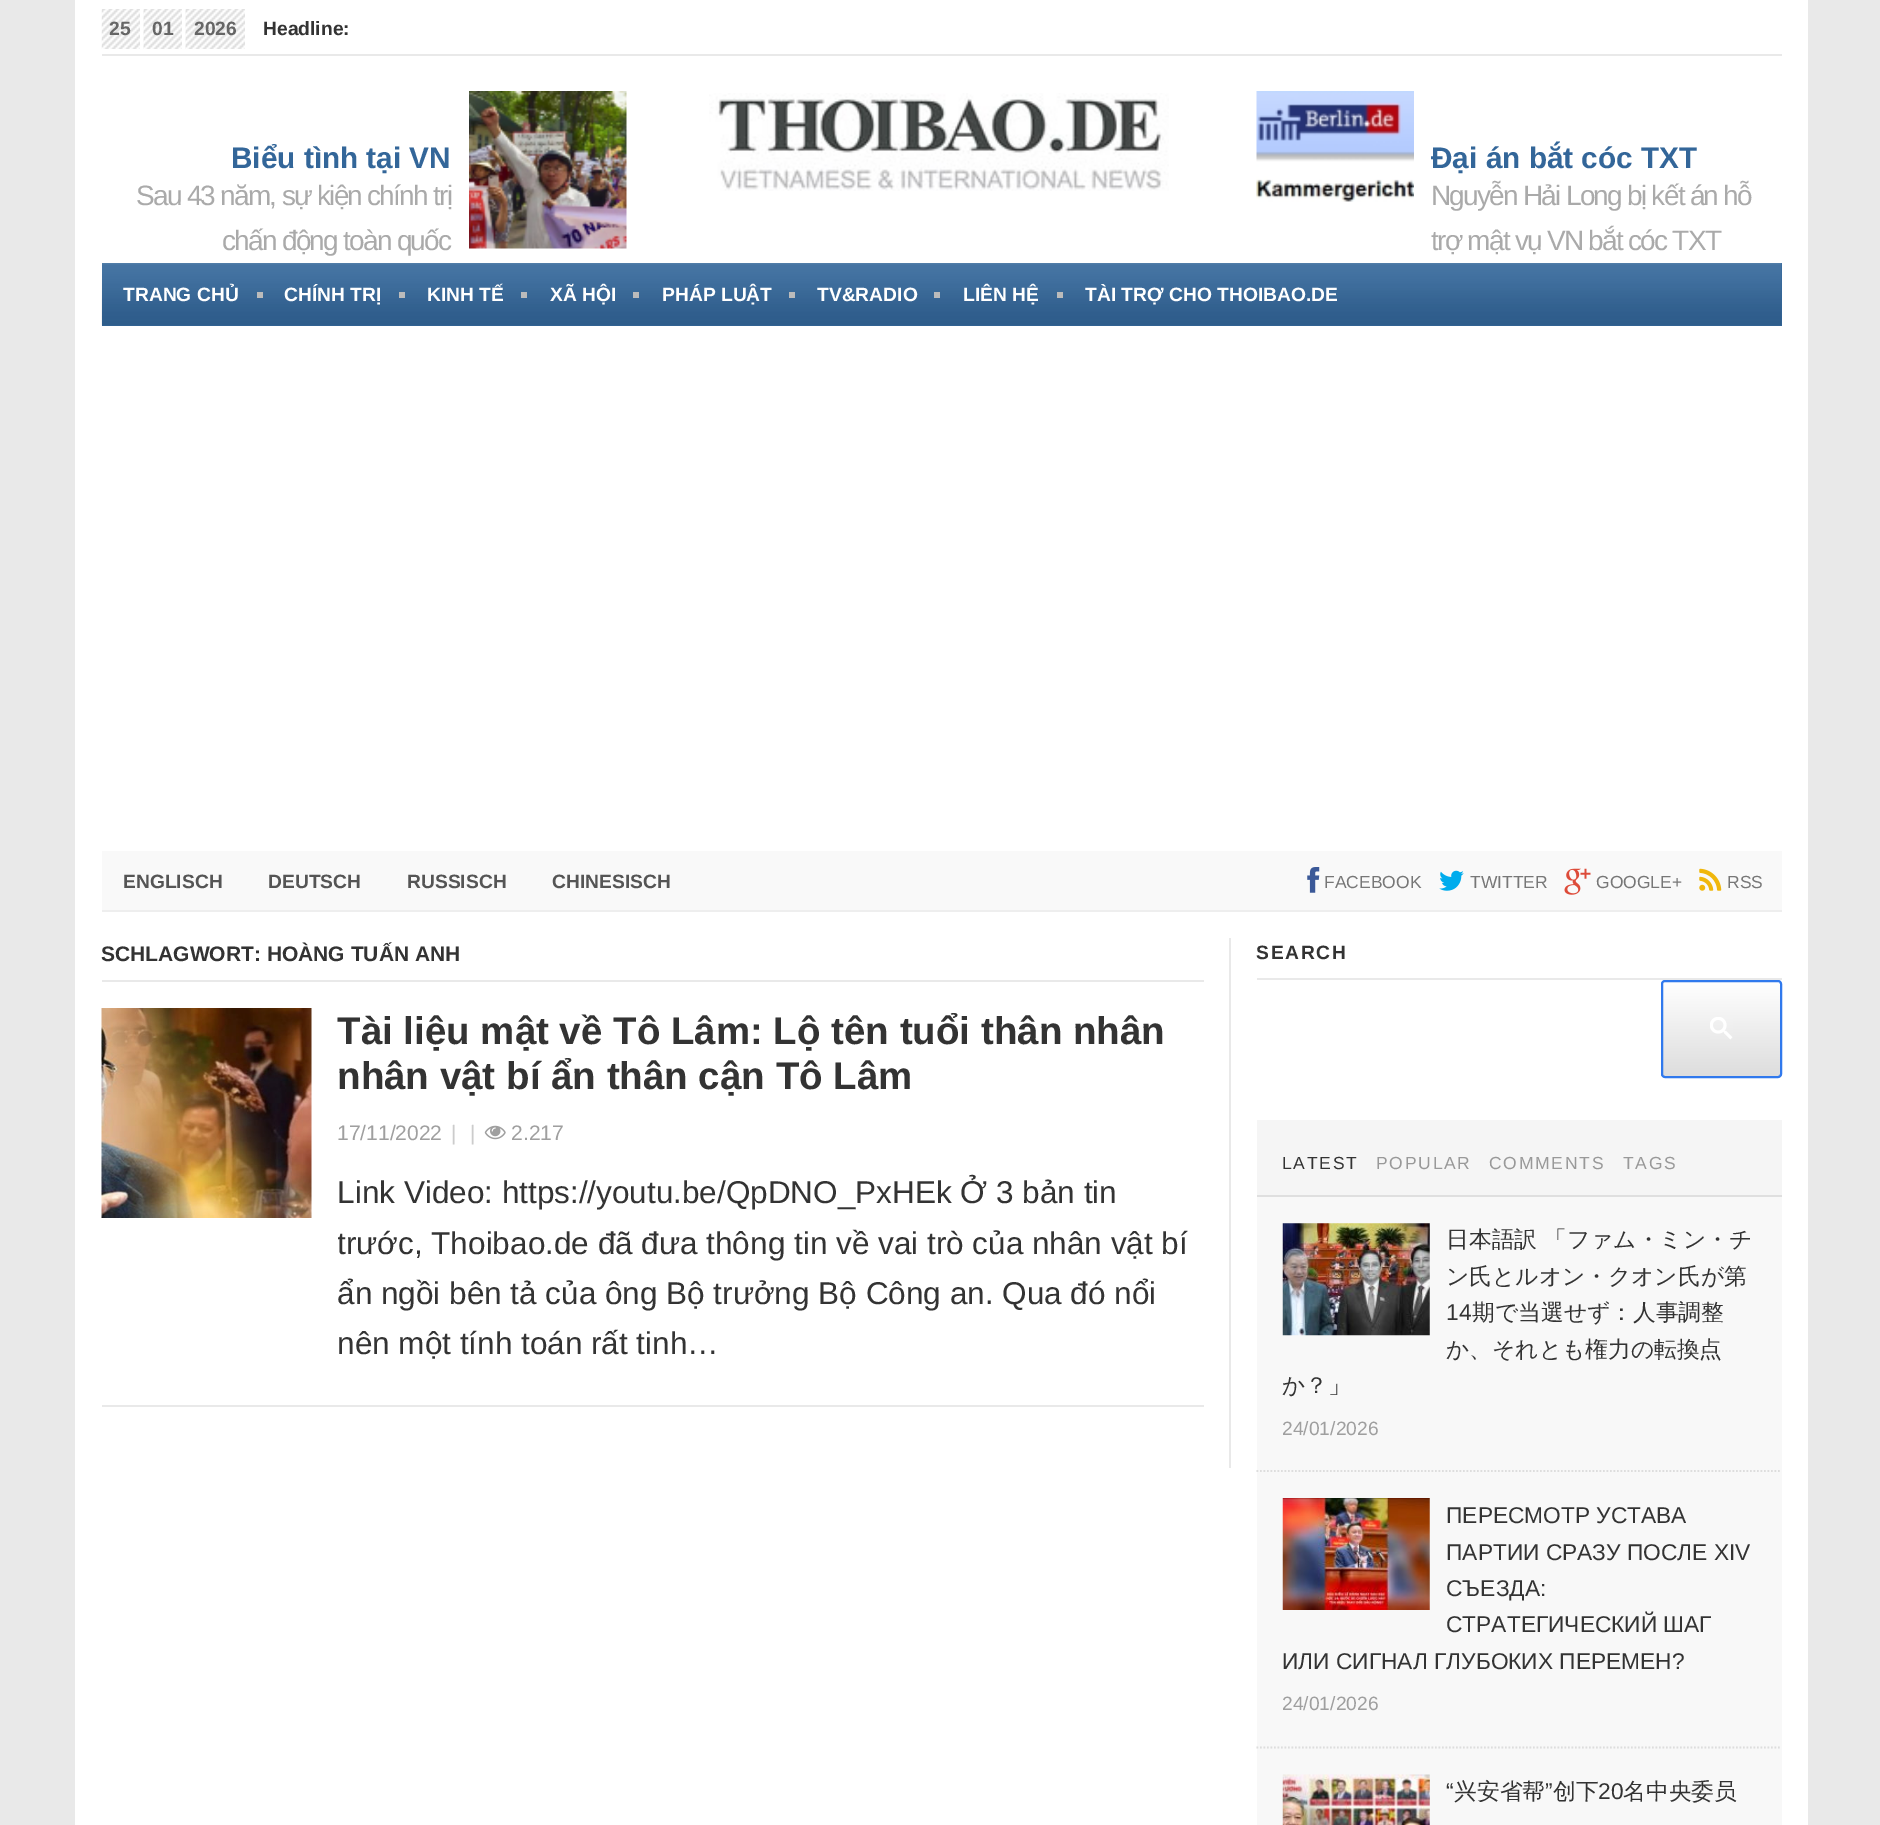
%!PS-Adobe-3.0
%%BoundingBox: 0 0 1880 1825
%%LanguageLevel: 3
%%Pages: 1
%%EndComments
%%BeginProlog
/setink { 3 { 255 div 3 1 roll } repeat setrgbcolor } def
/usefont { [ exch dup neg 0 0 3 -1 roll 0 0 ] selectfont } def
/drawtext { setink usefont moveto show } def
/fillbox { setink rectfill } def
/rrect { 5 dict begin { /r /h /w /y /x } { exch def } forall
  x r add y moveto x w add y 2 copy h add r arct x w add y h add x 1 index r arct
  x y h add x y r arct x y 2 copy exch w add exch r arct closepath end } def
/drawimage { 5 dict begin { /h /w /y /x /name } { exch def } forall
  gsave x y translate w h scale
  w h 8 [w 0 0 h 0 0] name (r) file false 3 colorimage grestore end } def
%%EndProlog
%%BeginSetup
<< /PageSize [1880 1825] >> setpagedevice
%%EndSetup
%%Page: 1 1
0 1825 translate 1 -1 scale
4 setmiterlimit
0 0 1880 1825 233 233 233 fillbox
75 0 1733 1825 255 255 255 fillbox
102 54 1680 2 233 233 233 fillbox
(assets/img1.rgb) 101 9 39 40 drawimage
(25) 109 35 /LiberationSans-Bold 19.25 102 102 102 drawtext
(assets/img2.rgb) 143 9 39 40 drawimage
(01) 152 35 /LiberationSans-Bold 19.25 102 102 102 drawtext
(assets/img3.rgb) 185 9 60 40 drawimage
(2026) 194 35 /LiberationSans-Bold 19.25 102 102 102 drawtext
(Headline:) 263 35 /LiberationSans-Bold 19.25 51 51 51 drawtext
(Biểu tình tại VN) 231 168 /LiberationSans-Bold 29.75 51 102 153 drawtext
/LiberationSans-Regular 28 usefont
170 170 170 setink
136 205 moveto -1.75 0 (Sau 43 năm, sự kiện chính trị) ashow
222 250 moveto -1.75 0 (chấn động toàn quốc) ashow
(assets/img4.rgb) 469 91 158 158 drawimage
(assets/img5.rgb) 709 93 460 98 drawimage
(assets/img6.rgb) 1256 91 158 111 drawimage
(Đại án bắt cóc TXT) 1431 168 /LiberationSans-Bold 29.75 51 102 153 drawtext
/LiberationSans-Regular 28 usefont
170 170 170 setink
1431 205 moveto -1.75 0 (Nguyễn Hải Long bị kết án hỗ) ashow
1431 250 moveto -1.75 0 (trợ mật vụ VN bắt cóc TXT) ashow
102 263 1680 63 51 102 153 fillbox
(assets/img7.rgb) 101 263 1681 63 drawimage
257 292 6 6 187 187 187 fillbox
(TRANG CHỦ) 123 301 /LiberationSans-Bold 19.25 255 255 255 drawtext
399 292 6 6 187 187 187 fillbox
(CHÍNH TRỊ) 284 301 /LiberationSans-Bold 19.25 255 255 255 drawtext
521 292 6 6 187 187 187 fillbox
(KINH TẾ) 427 301 /LiberationSans-Bold 19.25 255 255 255 drawtext
633 292 6 6 187 187 187 fillbox
(XÃ HỘI) 550 301 /LiberationSans-Bold 19.25 255 255 255 drawtext
789 292 6 6 187 187 187 fillbox
(PHÁP LUẬT) 662 301 /LiberationSans-Bold 19.25 255 255 255 drawtext
934 292 6 6 187 187 187 fillbox
(TV&RADIO) 817 301 /LiberationSans-Bold 19.25 255 255 255 drawtext
1057 292 6 6 187 187 187 fillbox
(LIÊN HỆ) 963 301 /LiberationSans-Bold 19.25 255 255 255 drawtext
(TÀI TRỢ CHO THOIBAO.DE) 1085 301 /LiberationSans-Bold 19.25 255 255 255 drawtext
102 851 1680 59 249 249 249 fillbox
102 910 1680 2 238 238 238 fillbox
(ENGLISCH) 123 888 /LiberationSans-Bold 19.25 85 85 85 drawtext
(DEUTSCH) 268 888 /LiberationSans-Bold 19.25 85 85 85 drawtext
(RUSSISCH) 407 888 /LiberationSans-Bold 19.25 85 85 85 drawtext
(CHINESISCH) 552 888 /LiberationSans-Bold 19.25 85 85 85 drawtext
(assets/img8.rgb) 1307 867 13 26 drawimage
(FACEBOOK) 1324 888 /LiberationSans-Regular 17.5 119 119 119 drawtext
(assets/img9.rgb) 1439 870 25 21 drawimage
(TWITTER) 1470 888 /LiberationSans-Regular 17.5 119 119 119 drawtext
(assets/img10.rgb) 1564 868 27 27 drawimage
(GOOGLE+) 1596 888 /LiberationSans-Regular 17.5 119 119 119 drawtext
(assets/img11.rgb) 1699 868 23 23 drawimage
(RSS) 1727 888 /LiberationSans-Regular 17.5 119 119 119 drawtext
1229 938 2 530 233 233 233 fillbox
102 980 1102 2 233 233 233 fillbox
(SCHLAGWORT: HOÀNG TUẤN ANH) 101 961 /LiberationSans-Bold 21 51 51 51 drawtext
102 1405 1102 2 233 233 233 fillbox
(assets/img12.rgb) 101 1008 211 210 drawimage
(Tài liệu mật về Tô Lâm: Lộ tên tuổi thân nhân) 337 1044 /LiberationSans-Bold 38.5 51 51 51 drawtext
(nhân vật bí ẩn thân cận Tô Lâm) 337 1089 /LiberationSans-Bold 38.5 51 51 51 drawtext
(17/11/2022) 337 1140 /LiberationSans-Regular 21 159 159 159 drawtext
(|) 451 1140 /LiberationSans-Regular 21 204 204 204 drawtext
(|) 470 1140 /LiberationSans-Regular 21 204 204 204 drawtext
(assets/img13.rgb) 484 1125 22 15 drawimage
(2.217) 511 1140 /LiberationSans-Regular 21 159 159 159 drawtext
(Link Video: https://youtu.be/QpDNO_PxHEk Ở 3 bản tin) 337 1203 /LiberationSans-Regular 31.5 51 51 51 drawtext
gsave
338 1169 866 201 rectclip
(trước, Thoibao.de đã đưa thông tin về vai trò của nhân vật bí) 337 1254 /LiberationSans-Regular 31.5 51 51 51 drawtext
grestore
(ẩn ngồi bên tả của ông Bộ trưởng Bộ Công an. Qua đó nổi) 337 1304 /LiberationSans-Regular 31.5 51 51 51 drawtext
(nên một tính toán rất tinh…) 337 1354 /LiberationSans-Regular 31.5 51 51 51 drawtext
1257 978 525 2 233 233 233 fillbox
/LiberationSans-Bold 19.25 usefont
51 51 51 setink
1256 959 moveto 1.75 0 (SEARCH) ashow
gsave
1661 980 121 98 4 rrect clip newpath
gsave 1661 982 moveto 1782 982 lineto 1782 1076 lineto 1661 1076 lineto closepath clip newpath
<< /ShadingType 2 /ColorSpace /DeviceRGB /Coords [1721 982 1721 1076] /Extend [true true] /Function << /FunctionType 2 /Domain [0 1] /C0 [1 1 1] /C1 [0.867 0.867 0.867] /N 1 >> >> shfill grestore
grestore
48 121 237 setink
2 setlinewidth
1662 981 119 96 3 rrect stroke
(assets/img14.rgb) 1710 1017 23 23 drawimage
1257 1197 525 628 248 248 248 fillbox
1257 1120 525 75 245 245 245 fillbox
1257 1195 525 2 223 223 223 fillbox
/LiberationSans-Regular 17.5 usefont
51 51 51 setink
1282 1169 moveto 1.75 0 (LATEST) ashow
153 153 153 setink
1376 1169 moveto 1.75 0 (POPULAR) ashow
1489 1169 moveto 1.75 0 (COMMENTS) ashow
1623 1169 moveto 1.75 0 (TAGS) ashow
221 221 221 setink
1.8 setlinewidth
[1.75 1.75] 0 setdash
1256.5 1471 moveto 1781.5 1471 lineto stroke
(assets/img15.rgb) 1282 1223 148 113 drawimage
(日本語訳) 1446 1247 /WenQuanYiZenHei-Medium 22.75 51 51 51 drawtext
(「ファム・ミン・チ) 1544 1247 /WenQuanYiZenHei-Medium 22.75 51 51 51 drawtext
(ン氏とルオン・クオン氏が第) 1446 1284 /WenQuanYiZenHei-Medium 22.75 51 51 51 drawtext
(14) 1446 1320 /LiberationSans-Regular 22.75 51 51 51 drawtext
(期で当選せず：人事調整) 1472 1320 /WenQuanYiZenHei-Medium 22.75 51 51 51 drawtext
(か、それとも権力の転換点) 1446 1357 /WenQuanYiZenHei-Medium 22.75 51 51 51 drawtext
(か？」) 1282 1393 /WenQuanYiZenHei-Medium 22.75 51 51 51 drawtext
(24/01/2026) 1282 1435 /LiberationSans-Regular 19.25 159 159 159 drawtext
221 221 221 setink
1256.5 1747.5 moveto 1781.5 1747.5 lineto stroke
(assets/img16.rgb) 1282 1498 148 112 drawimage
(ПЕРЕСМОТР УСТАВА) 1446 1523 /LiberationSans-Regular 22.75 51 51 51 drawtext
(ПАРТИИ СРАЗУ ПОСЛЕ XIV) 1446 1560 /LiberationSans-Regular 22.75 51 51 51 drawtext
(СЪЕЗДА:) 1446 1596 /LiberationSans-Regular 22.75 51 51 51 drawtext
(СТРАТЕГИЧЕСКИЙ ШАГ) 1446 1632 /LiberationSans-Regular 22.75 51 51 51 drawtext
(ИЛИ СИГНАЛ ГЛУБОКИХ ПЕРЕМЕН?) 1282 1669 /LiberationSans-Regular 22.75 51 51 51 drawtext
(24/01/2026) 1282 1710 /LiberationSans-Regular 19.25 159 159 159 drawtext
(assets/img17.rgb) 1282 1774 148 51 drawimage
(“) 1446 1799 /LiberationSans-Regular 22.75 51 51 51 drawtext
(兴安省帮) 1454 1799 /WenQuanYiZenHei-Medium 22.75 51 51 51 drawtext
(”) 1545 1799 /LiberationSans-Regular 22.75 51 51 51 drawtext
(创下) 1553 1799 /WenQuanYiZenHei-Medium 22.75 51 51 51 drawtext
(20) 1598 1799 /LiberationSans-Regular 22.75 51 51 51 drawtext
(名中央委员) 1623 1799 /WenQuanYiZenHei-Medium 22.75 51 51 51 drawtext
showpage
%%EOF
